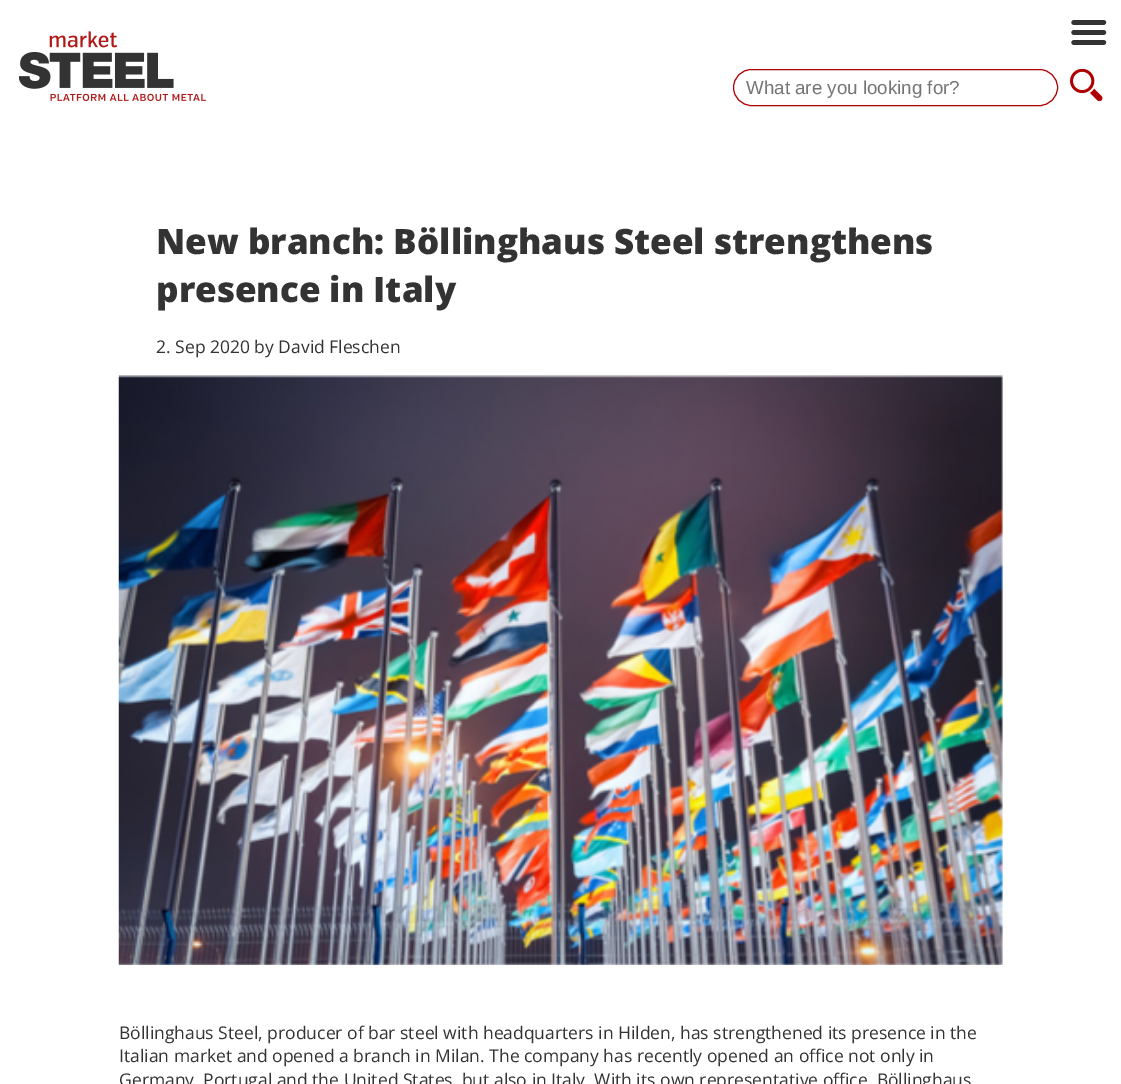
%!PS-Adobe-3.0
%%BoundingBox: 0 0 1121 1084
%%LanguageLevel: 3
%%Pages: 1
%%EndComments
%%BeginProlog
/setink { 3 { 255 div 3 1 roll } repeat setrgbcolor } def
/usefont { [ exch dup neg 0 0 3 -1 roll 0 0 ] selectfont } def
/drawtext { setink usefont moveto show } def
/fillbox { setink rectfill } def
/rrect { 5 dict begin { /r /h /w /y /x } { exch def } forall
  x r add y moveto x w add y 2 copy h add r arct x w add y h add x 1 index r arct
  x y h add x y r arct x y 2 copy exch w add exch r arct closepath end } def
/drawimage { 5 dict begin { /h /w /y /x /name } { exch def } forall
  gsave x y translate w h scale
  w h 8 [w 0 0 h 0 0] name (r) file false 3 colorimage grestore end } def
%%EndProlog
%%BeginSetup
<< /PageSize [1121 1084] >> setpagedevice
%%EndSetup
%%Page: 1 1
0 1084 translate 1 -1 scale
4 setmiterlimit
0 0 1121 1084 255 255 255 fillbox
(assets/img1.rgb) 19 31 187 70 drawimage
174 0 1 setink
733.5 69.5 324 36 18 rrect stroke
(What are you looking for?) 746 94 /LiberationSans-Regular 18.75 117 117 117 drawtext
(assets/img2.rgb) 1070 69 33 32 drawimage
(assets/img3.rgb) 1071 20 36 25 drawimage
(New branch: Böllinghaus Steel strengthens) 156 254 /OpenSans-ExtraBold 35 51 51 51 drawtext
(presence in Italy) 156 302 /OpenSans-ExtraBold 35 51 51 51 drawtext
(2. Sep 2020 by David Fleschen) 156 353 /OpenSans-Regular 17.5 51 51 51 drawtext
(assets/img4.rgb) 118 375 885 590 drawimage
(Böllinghaus Steel, producer of bar steel with headquarters in Hilden, has strengthened its presence in the) 119 1039 /OpenSans-Regular 17.5 51 51 51 drawtext
(Italian market and opened a branch in Milan. The company has recently opened an office not only in) 119 1062 /OpenSans-Regular 17.5 51 51 51 drawtext
(Germany, Portugal and the United States, but also in Italy. With its own representative office, Böllinghaus) 119 1086 /OpenSans-Regular 17.5 51 51 51 drawtext
showpage
%%EOF
